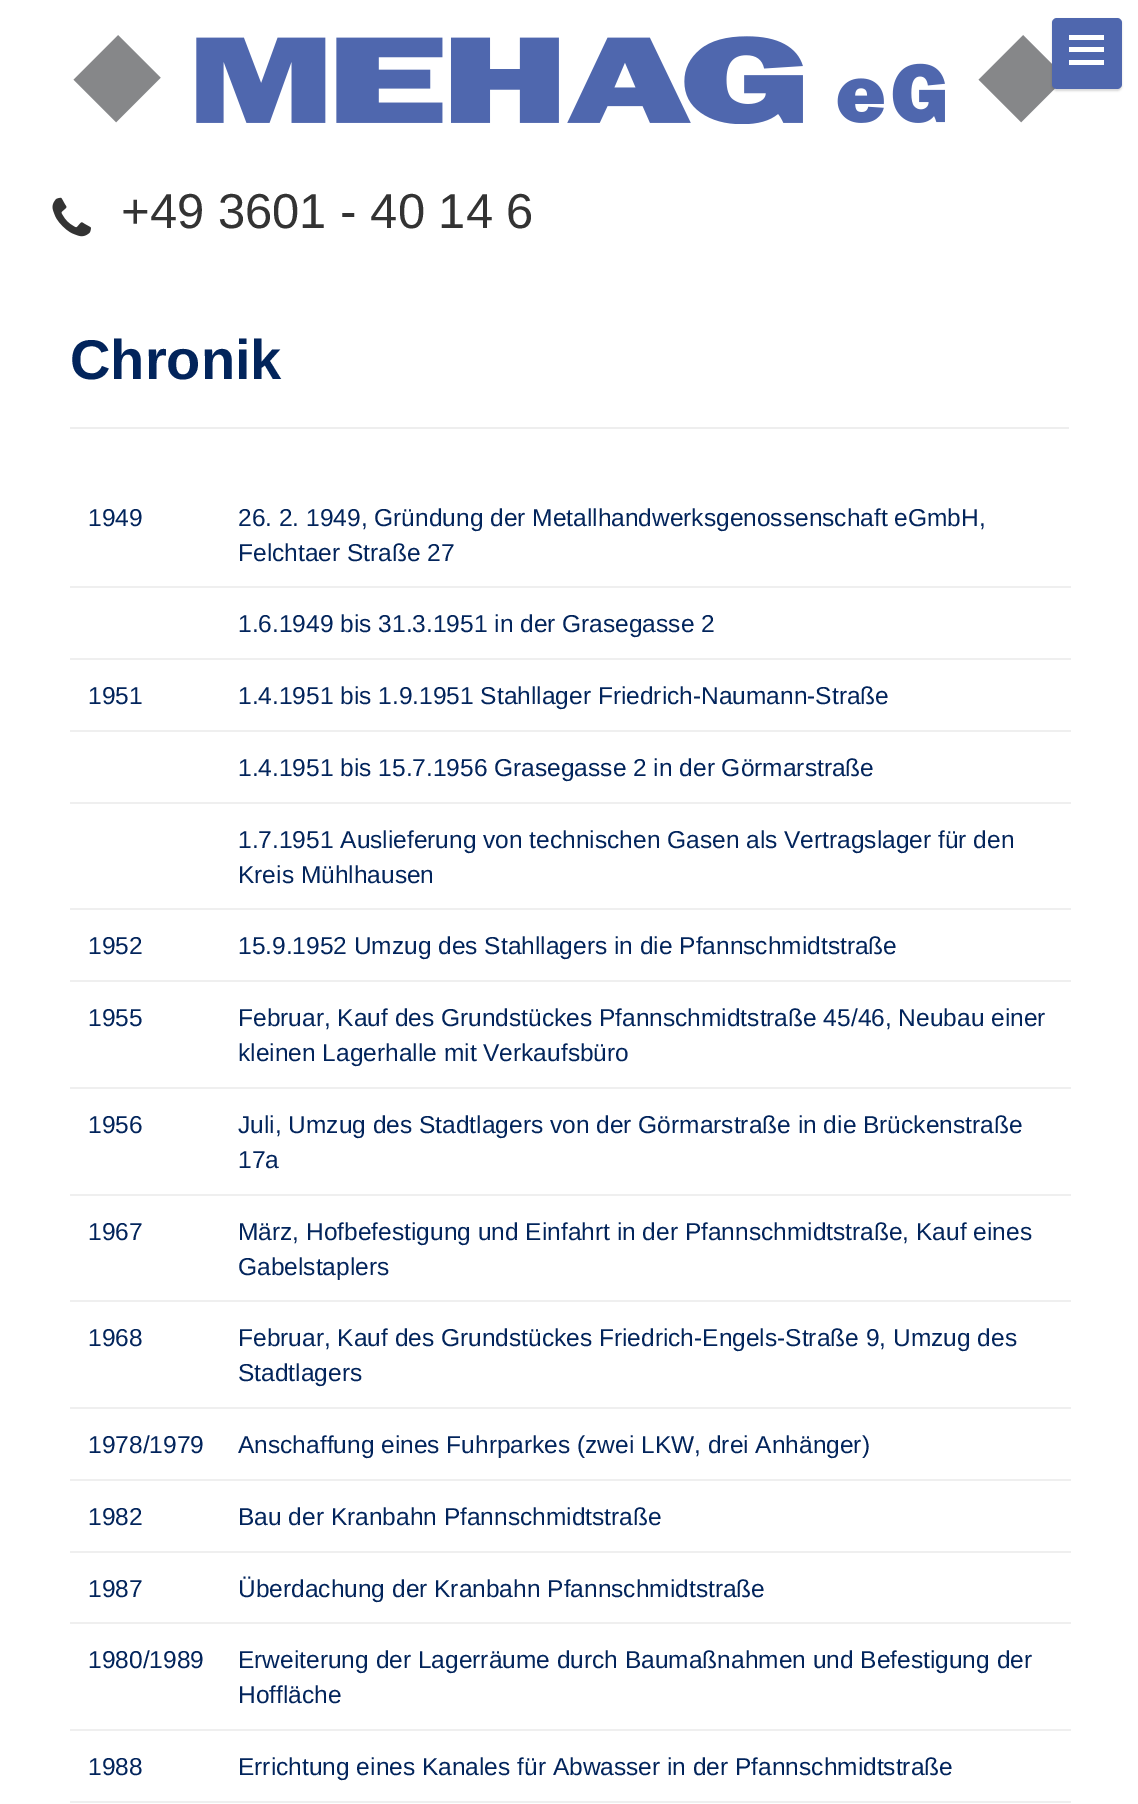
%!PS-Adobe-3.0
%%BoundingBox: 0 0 1138 1804
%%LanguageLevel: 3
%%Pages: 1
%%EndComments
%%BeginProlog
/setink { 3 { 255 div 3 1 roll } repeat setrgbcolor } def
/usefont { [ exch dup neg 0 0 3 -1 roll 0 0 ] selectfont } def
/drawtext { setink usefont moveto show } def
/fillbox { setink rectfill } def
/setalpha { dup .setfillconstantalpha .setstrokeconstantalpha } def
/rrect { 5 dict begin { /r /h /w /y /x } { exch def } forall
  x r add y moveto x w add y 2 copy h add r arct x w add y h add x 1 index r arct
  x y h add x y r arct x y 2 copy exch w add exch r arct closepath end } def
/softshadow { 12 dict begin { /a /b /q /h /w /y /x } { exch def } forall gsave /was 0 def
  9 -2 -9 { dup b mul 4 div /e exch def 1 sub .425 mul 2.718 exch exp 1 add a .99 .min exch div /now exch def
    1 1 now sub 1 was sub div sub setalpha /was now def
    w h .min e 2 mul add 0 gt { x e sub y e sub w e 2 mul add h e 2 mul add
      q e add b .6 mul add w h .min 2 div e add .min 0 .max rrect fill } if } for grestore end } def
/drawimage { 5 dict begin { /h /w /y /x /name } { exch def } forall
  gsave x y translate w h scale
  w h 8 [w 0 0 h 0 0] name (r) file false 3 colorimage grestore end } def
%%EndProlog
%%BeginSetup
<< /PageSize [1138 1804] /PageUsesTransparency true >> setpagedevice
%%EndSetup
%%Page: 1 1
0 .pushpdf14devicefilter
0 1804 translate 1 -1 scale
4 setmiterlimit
0 0 1138 1804 255 255 255 fillbox
(assets/img1.rgb) 73 35 983 89 drawimage
0 0 0 setink
1052 19 70 72 5 1 0.15 softshadow
79 103 174 setink
1052 18 70 71 5 rrect fill
1069 35 35 5 255 255 255 fillbox
1069 47 35 5 255 255 255 fillbox
1069 60 35 5 255 255 255 fillbox
(assets/img2.rgb) 52 197 39 40 drawimage
(+49 3601 - 40 14 6) 121 228 /LiberationSans-Regular 49 51 51 51 drawtext
70 427 999 2 238 238 238 fillbox
(Chronik) 70 379 /LiberationSans-Bold 56 2 36 91 drawtext
70 586 1001 2 239 239 239 fillbox
(1949) 88 526 /LiberationSans-Regular 24.5 2 36 91 drawtext
(26. 2. 1949, Gründung der Metallhandwerksgenossenschaft eGmbH,) 238 526 /LiberationSans-Regular 24.5 2 36 91 drawtext
(Felchtaer Straße 27) 238 561 /LiberationSans-Regular 24.5 2 36 91 drawtext
70 658 1001 2 239 239 239 fillbox
(1.6.1949 bis 31.3.1951 in der Grasegasse 2) 238 632 /LiberationSans-Regular 24.5 2 36 91 drawtext
70 730 1001 2 239 239 239 fillbox
(1951) 88 704 /LiberationSans-Regular 24.5 2 36 91 drawtext
(1.4.1951 bis 1.9.1951 Stahllager Friedrich-Naumann-Straße) 238 704 /LiberationSans-Regular 24.5 2 36 91 drawtext
70 802 1001 2 239 239 239 fillbox
(1.4.1951 bis 15.7.1956 Grasegasse 2 in der Görmarstraße) 238 776 /LiberationSans-Regular 24.5 2 36 91 drawtext
70 908 1001 2 239 239 239 fillbox
(1.7.1951 Auslieferung von technischen Gasen als Vertragslager für den) 238 848 /LiberationSans-Regular 24.5 2 36 91 drawtext
(Kreis Mühlhausen) 238 883 /LiberationSans-Regular 24.5 2 36 91 drawtext
70 980 1001 2 239 239 239 fillbox
(1952) 88 954 /LiberationSans-Regular 24.5 2 36 91 drawtext
(15.9.1952 Umzug des Stahllagers in die Pfannschmidtstraße) 238 954 /LiberationSans-Regular 24.5 2 36 91 drawtext
70 1087 1001 2 239 239 239 fillbox
(1955) 88 1026 /LiberationSans-Regular 24.5 2 36 91 drawtext
(Februar, Kauf des Grundstückes Pfannschmidtstraße 45/46, Neubau einer) 238 1026 /LiberationSans-Regular 24.5 2 36 91 drawtext
(kleinen Lagerhalle mit Verkaufsbüro) 238 1061 /LiberationSans-Regular 24.5 2 36 91 drawtext
70 1194 1001 2 239 239 239 fillbox
(1956) 88 1133 /LiberationSans-Regular 24.5 2 36 91 drawtext
(Juli, Umzug des Stadtlagers von der Görmarstraße in die Brückenstraße) 238 1133 /LiberationSans-Regular 24.5 2 36 91 drawtext
(17a) 238 1168 /LiberationSans-Regular 24.5 2 36 91 drawtext
70 1300 1001 2 239 239 239 fillbox
(1967) 88 1240 /LiberationSans-Regular 24.5 2 36 91 drawtext
(März, Hofbefestigung und Einfahrt in der Pfannschmidtstraße, Kauf eines) 238 1240 /LiberationSans-Regular 24.5 2 36 91 drawtext
(Gabelstaplers) 238 1275 /LiberationSans-Regular 24.5 2 36 91 drawtext
70 1407 1001 2 239 239 239 fillbox
(1968) 88 1346 /LiberationSans-Regular 24.5 2 36 91 drawtext
(Februar, Kauf des Grundstückes Friedrich-Engels-Straße 9, Umzug des) 238 1346 /LiberationSans-Regular 24.5 2 36 91 drawtext
(Stadtlagers) 238 1381 /LiberationSans-Regular 24.5 2 36 91 drawtext
70 1479 1001 2 239 239 239 fillbox
(1978/1979) 88 1453 /LiberationSans-Regular 24.5 2 36 91 drawtext
(Anschaffung eines Fuhrparkes \(zwei LKW, drei Anhänger\)) 238 1453 /LiberationSans-Regular 24.5 2 36 91 drawtext
70 1551 1001 2 239 239 239 fillbox
(1982) 88 1525 /LiberationSans-Regular 24.5 2 36 91 drawtext
(Bau der Kranbahn Pfannschmidtstraße) 238 1525 /LiberationSans-Regular 24.5 2 36 91 drawtext
70 1622 1001 2 239 239 239 fillbox
(1987) 88 1597 /LiberationSans-Regular 24.5 2 36 91 drawtext
(Überdachung der Kranbahn Pfannschmidtstraße) 238 1597 /LiberationSans-Regular 24.5 2 36 91 drawtext
70 1729 1001 2 239 239 239 fillbox
(1980/1989) 88 1668 /LiberationSans-Regular 24.5 2 36 91 drawtext
(Erweiterung der Lagerräume durch Baumaßnahmen und Befestigung der) 238 1668 /LiberationSans-Regular 24.5 2 36 91 drawtext
(Hoffläche) 238 1703 /LiberationSans-Regular 24.5 2 36 91 drawtext
70 1801 1001 2 239 239 239 fillbox
(1988) 88 1775 /LiberationSans-Regular 24.5 2 36 91 drawtext
(Errichtung eines Kanales für Abwasser in der Pfannschmidtstraße) 238 1775 /LiberationSans-Regular 24.5 2 36 91 drawtext
.poppdf14devicefilter showpage
%%EOF
